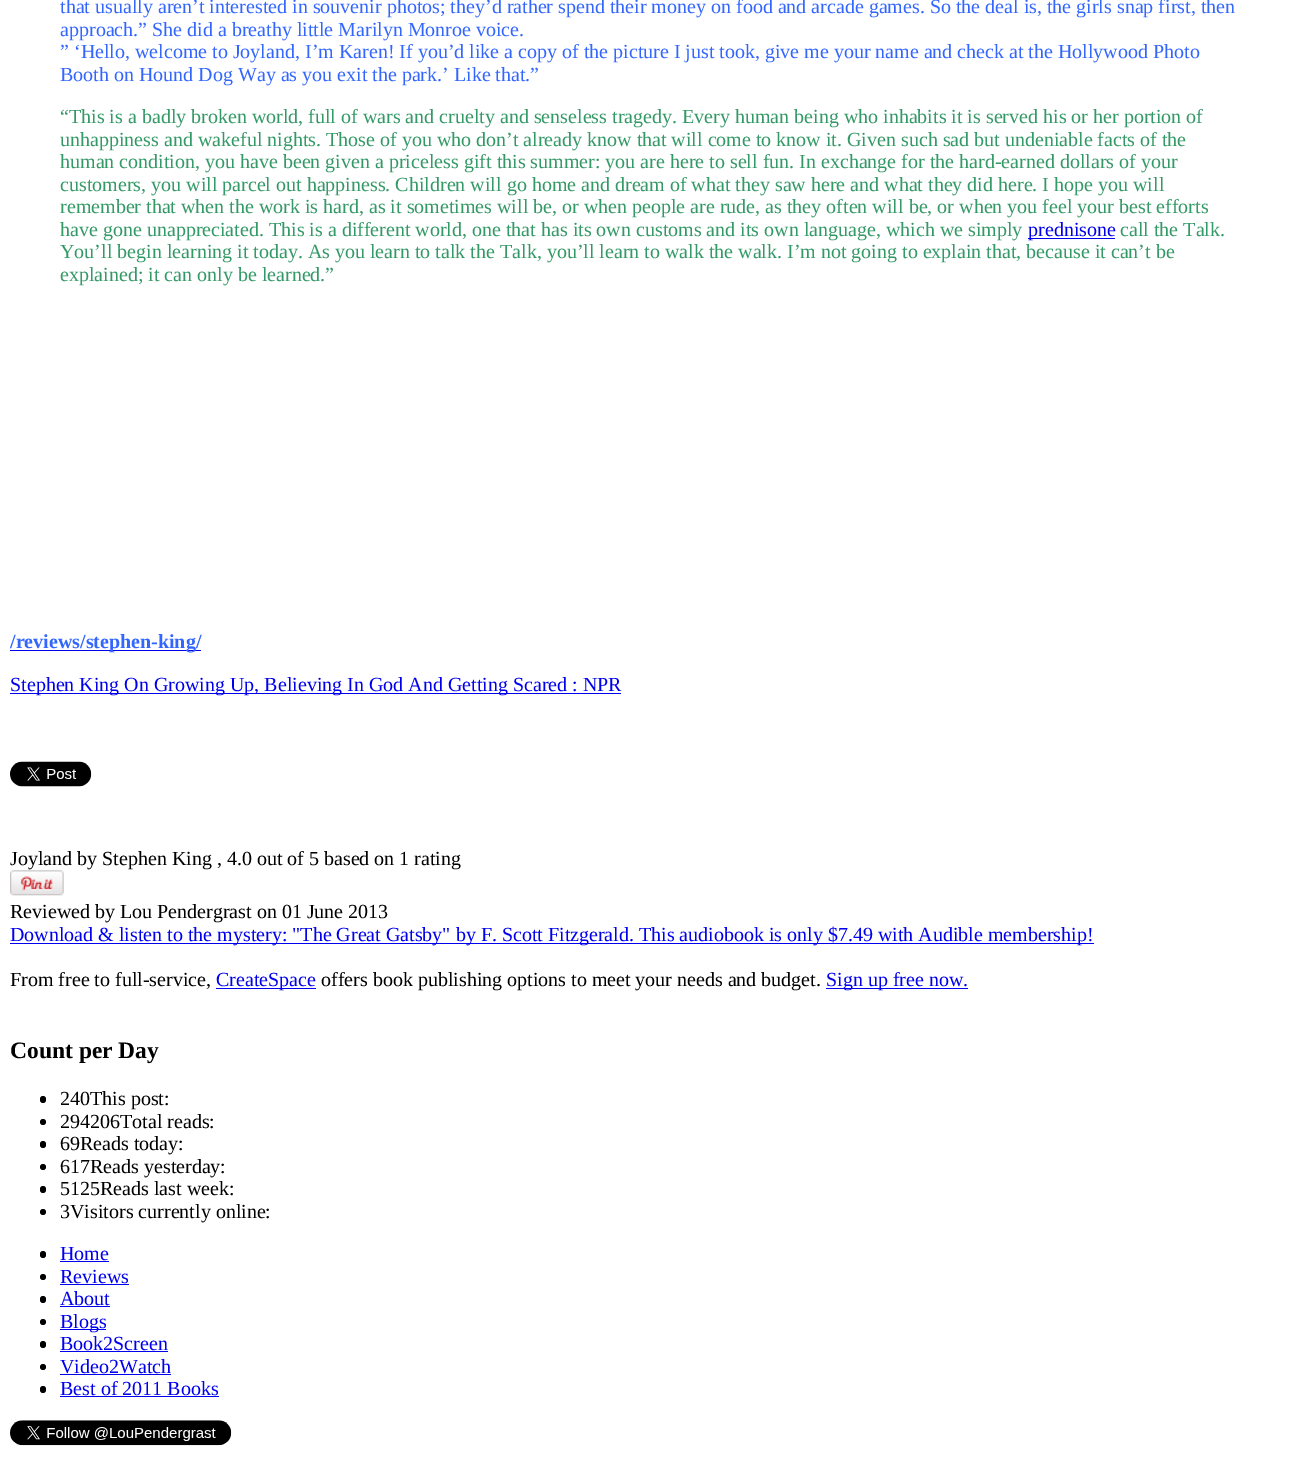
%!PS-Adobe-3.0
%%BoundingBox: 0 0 1297 1459
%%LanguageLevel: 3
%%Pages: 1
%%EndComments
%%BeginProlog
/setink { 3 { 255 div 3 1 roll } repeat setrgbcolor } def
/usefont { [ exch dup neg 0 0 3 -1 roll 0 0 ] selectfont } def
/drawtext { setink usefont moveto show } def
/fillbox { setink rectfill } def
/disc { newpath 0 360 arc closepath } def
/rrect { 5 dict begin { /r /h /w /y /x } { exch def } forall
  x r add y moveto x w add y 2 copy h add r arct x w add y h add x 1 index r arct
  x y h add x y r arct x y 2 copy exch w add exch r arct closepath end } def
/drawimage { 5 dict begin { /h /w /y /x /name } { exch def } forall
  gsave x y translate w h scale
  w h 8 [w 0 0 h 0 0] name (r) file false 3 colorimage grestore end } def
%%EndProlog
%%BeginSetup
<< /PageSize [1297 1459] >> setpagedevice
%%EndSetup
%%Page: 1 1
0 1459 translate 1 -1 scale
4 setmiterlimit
0 0 1297 1459 255 255 255 fillbox
(that usually aren’t interested in souvenir photos; they’d rather spend their money on food and arcade games. So the deal is, the girls snap first, then) 60 13 /LiberationSerif-Regular 20 51 102 255 drawtext
(approach.” She did a breathy little Marilyn Monroe voice.) 60 36 /LiberationSerif-Regular 20 51 102 255 drawtext
(” ‘Hello, welcome to Joyland, I’m Karen! If you’d like a copy of the picture I just took, give me your name and check at the Hollywood Photo) 60 58 /LiberationSerif-Regular 20 51 102 255 drawtext
(Booth on Hound Dog Way as you exit the park.’ Like that.”) 60 81 /LiberationSerif-Regular 20 51 102 255 drawtext
(“This is a badly broken world, full of wars and cruelty and senseless tragedy. Every human being who inhabits it is served his or her portion of) 60 123 /LiberationSerif-Regular 20 51 153 102 drawtext
(unhappiness and wakeful nights. Those of you who don’t already know that will come to know it. Given such sad but undeniable facts of the) 60 146 /LiberationSerif-Regular 20 51 153 102 drawtext
(human condition, you have been given a priceless gift this summer: you are here to sell fun. In exchange for the hard-earned dollars of your) 60 168 /LiberationSerif-Regular 20 51 153 102 drawtext
(customers, you will parcel out happiness. Children will go home and dream of what they saw here and what they did here. I hope you will) 60 191 /LiberationSerif-Regular 20 51 153 102 drawtext
(remember that when the work is hard, as it sometimes will be, or when people are rude, as they often will be, or when you feel your best efforts) 60 213 /LiberationSerif-Regular 20 51 153 102 drawtext
(have gone unappreciated. This is a different world, one that has its own customs and its own language, which we simply) 60 236 /LiberationSerif-Regular 20 51 153 102 drawtext
1028 238 87 1 0 0 238 fillbox
(prednisone) 1028 236 /LiberationSerif-Regular 20 0 0 238 drawtext
(call the Talk.) 1120 236 /LiberationSerif-Regular 20 51 153 102 drawtext
(You’ll begin learning it today. As you learn to talk the Talk, you’ll learn to walk the walk. I’m not going to explain that, because it can’t be) 60 258 /LiberationSerif-Regular 20 51 153 102 drawtext
(explained; it can only be learned.”) 60 281 /LiberationSerif-Regular 20 51 153 102 drawtext
10 650 191 1 0 0 238 fillbox
(/reviews/stephen-king/) 10 648 /LiberationSerif-Bold 20 51 102 255 drawtext
10 693 611 1 0 0 238 fillbox
(Stephen King On Growing Up, Believing In God And Getting Scared : NPR) 10 691 /LiberationSerif-Regular 20 0 0 238 drawtext
(assets/img1.rgb) 10 761 82 26 drawimage
(Joyland by Stephen King , 4.0 out of 5 based on 1 rating) 10 865 /LiberationSerif-Regular 20 0 0 0 drawtext
(assets/img2.rgb) 10 870 54 26 drawimage
(Reviewed by Lou Pendergrast on 01 June 2013) 10 918 /LiberationSerif-Regular 20 0 0 0 drawtext
10 943 1084 1 0 0 238 fillbox
(Download & listen to the mystery: "The Great Gatsby" by F. Scott Fitzgerald. This audiobook is only $7.49 with Audible membership!) 10 941 /LiberationSerif-Regular 20 0 0 238 drawtext
(From free to full-service,) 10 986 /LiberationSerif-Regular 20 0 0 0 drawtext
216 988 100 1 0 0 238 fillbox
(CreateSpace) 216 986 /LiberationSerif-Regular 20 0 0 238 drawtext
(offers book publishing options to meet your needs and budget.) 321 986 /LiberationSerif-Regular 20 0 0 0 drawtext
826 988 142 1 0 0 238 fillbox
(Sign up free now.) 826 986 /LiberationSerif-Regular 20 0 0 238 drawtext
(Count per Day) 10 1058 /LiberationSerif-Bold 23.5 0 0 0 drawtext
40 1096 6 7 3 rrect fill
(240This post:) 60 1105 /LiberationSerif-Regular 20 0 0 0 drawtext
43 1122 3 disc fill
(294206Total reads:) 60 1128 /LiberationSerif-Regular 20 0 0 0 drawtext
40 1141 6 7 3 rrect fill
(69Reads today:) 60 1150 /LiberationSerif-Regular 20 0 0 0 drawtext
43 1167 3 disc fill
(617Reads yesterday:) 60 1173 /LiberationSerif-Regular 20 0 0 0 drawtext
40 1186 6 7 3 rrect fill
(5125Reads last week:) 60 1195 /LiberationSerif-Regular 20 0 0 0 drawtext
43 1212 3 disc fill
(3Visitors currently online:) 60 1218 /LiberationSerif-Regular 20 0 0 0 drawtext
40 1251 6 7 3 rrect fill
(Home) 60 1260 /LiberationSerif-Regular 20 0 0 238 drawtext
60 1261 49 1 0 0 238 fillbox
0 0 0 setink
43 1277 3 disc fill
(Reviews) 60 1283 /LiberationSerif-Regular 20 0 0 238 drawtext
60 1284 69 1 0 0 238 fillbox
0 0 0 setink
40 1296 6 7 3 rrect fill
(About) 60 1305 /LiberationSerif-Regular 20 0 0 238 drawtext
60 1306 50 1 0 0 238 fillbox
0 0 0 setink
43 1322 3 disc fill
60 1329 46 1 0 0 238 fillbox
(Blogs) 60 1328 /LiberationSerif-Regular 20 0 0 238 drawtext
0 0 0 setink
40 1341 6 7 3 rrect fill
(Book2Screen) 60 1350 /LiberationSerif-Regular 20 0 0 238 drawtext
60 1351 108 1 0 0 238 fillbox
0 0 0 setink
43 1367 3 disc fill
(Video2Watch) 60 1373 /LiberationSerif-Regular 20 0 0 238 drawtext
60 1374 111 1 0 0 238 fillbox
0 0 0 setink
40 1386 6 7 3 rrect fill
(Best of 2011 Books) 60 1395 /LiberationSerif-Regular 20 0 0 238 drawtext
60 1396 159 1 0 0 238 fillbox
(assets/img3.rgb) 10 1420 222 26 drawimage
showpage
%%EOF
